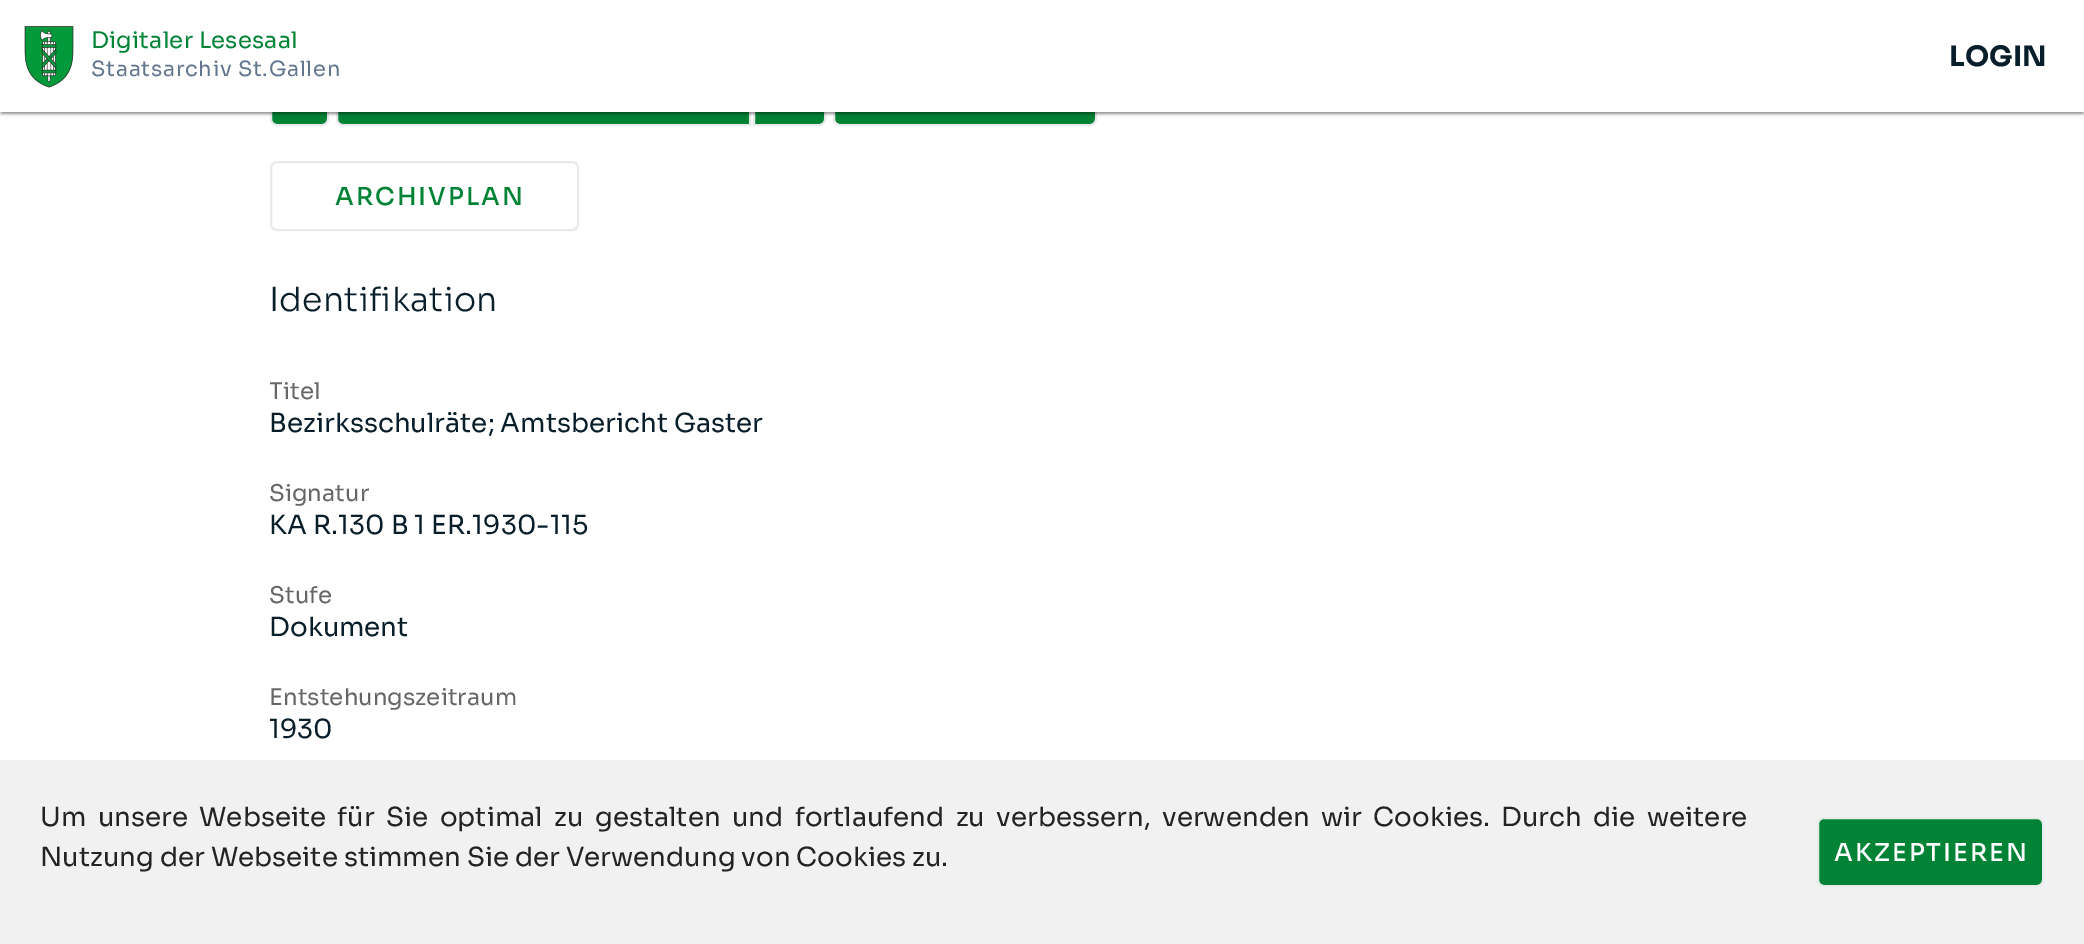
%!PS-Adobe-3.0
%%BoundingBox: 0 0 2084 944
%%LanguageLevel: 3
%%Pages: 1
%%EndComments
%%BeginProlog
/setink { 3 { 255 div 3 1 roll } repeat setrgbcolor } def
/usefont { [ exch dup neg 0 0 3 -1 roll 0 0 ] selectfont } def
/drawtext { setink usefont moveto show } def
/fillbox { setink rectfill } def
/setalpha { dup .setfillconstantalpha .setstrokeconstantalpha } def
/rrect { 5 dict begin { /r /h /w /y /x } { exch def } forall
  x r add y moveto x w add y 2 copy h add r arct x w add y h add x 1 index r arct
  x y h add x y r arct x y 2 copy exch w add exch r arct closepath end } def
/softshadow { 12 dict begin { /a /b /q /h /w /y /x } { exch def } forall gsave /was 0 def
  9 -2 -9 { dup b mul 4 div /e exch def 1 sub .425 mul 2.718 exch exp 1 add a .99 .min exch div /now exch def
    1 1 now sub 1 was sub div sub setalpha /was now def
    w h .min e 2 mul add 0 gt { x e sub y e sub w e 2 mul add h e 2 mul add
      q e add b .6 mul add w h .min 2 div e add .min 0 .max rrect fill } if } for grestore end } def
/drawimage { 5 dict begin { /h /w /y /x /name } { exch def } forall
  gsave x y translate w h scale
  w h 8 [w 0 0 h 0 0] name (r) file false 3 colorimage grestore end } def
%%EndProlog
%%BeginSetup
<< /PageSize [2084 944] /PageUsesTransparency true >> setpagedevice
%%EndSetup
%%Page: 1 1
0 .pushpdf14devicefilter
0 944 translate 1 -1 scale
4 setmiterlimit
0 0 2084 944 255 255 255 fillbox
0 131 52 setink
271 75 57 50 6 rrect gsave fill grestore
231 235 237 setink
2 setlinewidth
stroke
0 131 52 setink
343 75 moveto 750 75 lineto 750 125 lineto 343 125 lineto 339.5 125 337 122.5 337 119 curveto 337 81 lineto 337 77.5 339.5 75 343 75 curveto closepath gsave fill grestore
231 235 237 setink
stroke
0 131 52 setink
754 75 moveto 819 75 lineto 822.5 75 825 77.5 825 81 curveto 825 119 lineto 825 122.5 822.5 125 819 125 curveto 754 125 lineto closepath gsave fill grestore
231 235 237 setink
stroke
0 131 52 setink
834 75 262 50 6 rrect gsave fill grestore
231 235 237 setink
stroke
0 0 0 setink
0 2 2084 112 0 2.5 0.12 softshadow
0 2 2084 112 0 1 0.14 softshadow
2 5 2081 109 0 1 0.2 softshadow
0 0 2084 112 255 255 255 fillbox
(assets/img1.rgb) 24 26 50 62 drawimage
/Sora-Regular 22.75 usefont
0 131 52 setink
91 48 moveto 0.25 0 (Digitaler Lesesaal) ashow
/Sora-Regular 21 usefont
97 117 143 setink
91 76 moveto 0.7 0 (Staatsarchiv St.Gallen) ashow
/Sora-Bold 28 usefont
9 30 43 setink
1949 66 moveto 0.25 0 (LOGIN) ashow
231 235 237 setink
271 162 307 68 6 rrect stroke
/Sora-Medium 24.5 usefont
0 131 52 setink
335 205 moveto 2 0 (ARCHIVPLAN) ashow
/Sora-Light 33.25 usefont
9 30 43 setink
269 311 moveto 0.25 0 (Identifikation) ashow
gsave
270 378 1547 28 rectclip
(Titel) 269 399 /Sora-Regular 23 102 102 102 drawtext
grestore
(Bezirksschulräte; Amtsbericht Gaster) 269 432 /Sora-Regular 26.25 9 30 43 drawtext
(Signatur) 269 501 /Sora-Regular 23 102 102 102 drawtext
(KA R.130 B 1 ER.1930-115) 269 534 /Sora-Regular 26.25 9 30 43 drawtext
(Stufe) 269 603 /Sora-Regular 23 102 102 102 drawtext
(Dokument) 269 636 /Sora-Regular 26.25 9 30 43 drawtext
(Entstehungszeitraum) 269 705 /Sora-Regular 23 102 102 102 drawtext
(1930) 269 738 /Sora-Regular 26.25 9 30 43 drawtext
0 760 2084 184 241 241 241 fillbox
35 35 35 setink
40 826 moveto 5.4 0 32 (Um unsere Webseite für Sie optimal zu gestalten und fortlaufend zu verbessern, verwenden wir Cookies. Durch die weitere) widthshow
(Nutzung der Webseite stimmen Sie der Verwendung von Cookies zu.) 40 866 /Sora-Regular 26.25 35 35 35 drawtext
0 131 52 setink
1818 818 225 68 6 rrect gsave fill grestore
231 235 237 setink
stroke
/Sora-Medium 24.5 usefont
255 255 255 setink
1834 861 moveto 2 0 (AKZEPTIEREN) ashow
.poppdf14devicefilter showpage
%%EOF
